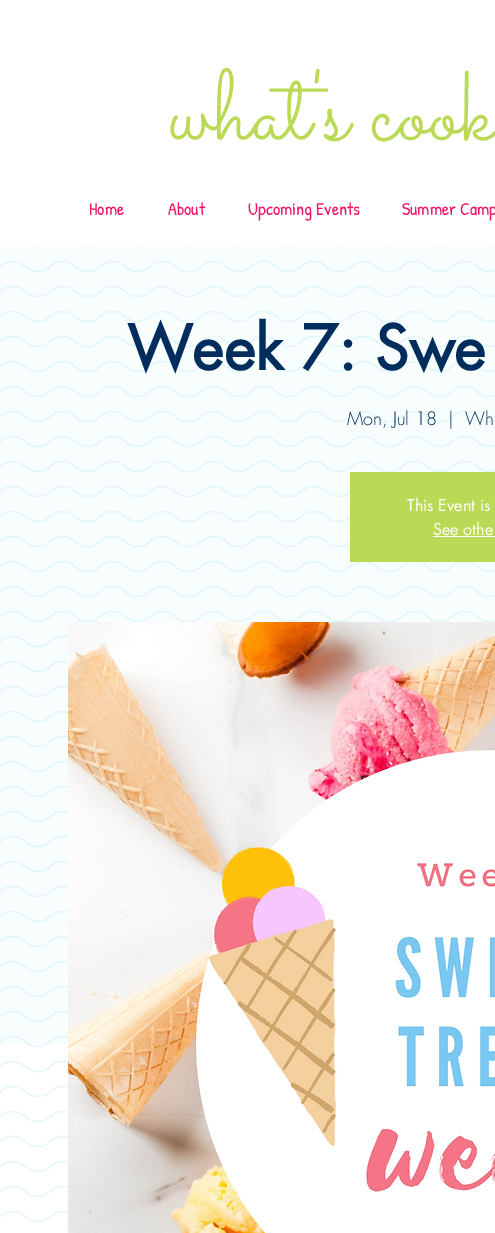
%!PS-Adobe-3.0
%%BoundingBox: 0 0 495 1233
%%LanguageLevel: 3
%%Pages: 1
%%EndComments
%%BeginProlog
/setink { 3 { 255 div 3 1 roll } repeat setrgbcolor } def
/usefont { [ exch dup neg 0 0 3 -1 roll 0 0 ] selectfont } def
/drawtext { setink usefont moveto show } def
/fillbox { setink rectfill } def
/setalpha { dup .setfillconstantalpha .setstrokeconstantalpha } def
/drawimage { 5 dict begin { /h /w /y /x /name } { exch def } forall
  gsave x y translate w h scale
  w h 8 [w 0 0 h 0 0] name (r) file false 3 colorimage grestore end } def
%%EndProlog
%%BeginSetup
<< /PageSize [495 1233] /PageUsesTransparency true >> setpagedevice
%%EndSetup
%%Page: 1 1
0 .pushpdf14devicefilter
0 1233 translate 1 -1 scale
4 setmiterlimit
0 0 495 1233 255 255 255 fillbox
(what's cook) 169 139 /Sacramento-Regular 100 186 218 85 drawtext
(Home) 89 215 /PatrickHand-Regular 18 237 21 102 drawtext
(About) 168 215 /PatrickHand-Regular 18 237 21 102 drawtext
(Upcoming Events) 248 215 /PatrickHand-Regular 18 237 21 102 drawtext
(Summer Camp) 402 215 /PatrickHand-Regular 18 237 21 102 drawtext
(assets/img2.rgb) 0 247 495 976 drawimage
0.85 setalpha
0 247 495 976 255 255 255 fillbox
0.1 setalpha
0 247 495 797 182 242 231 fillbox
1 setalpha
(Week 7: Swe) 127 370 /futura-Bold 60 0 45 92 drawtext
(Mon, Jul 18) 347 425 /futura-Light 18 0 45 92 drawtext
(|) 448 425 /futura-Light 18 0 45 92 drawtext
(Wh) 465 425 /futura-Light 18 0 45 92 drawtext
350 472 145 90 186 218 85 fillbox
(This Event is) 407 511 /futura-Regular 16 255 255 255 drawtext
(See othe) 433 535 /futura-Regular 16 255 255 255 drawtext
433 536 62 1 255 255 255 fillbox
(assets/img1.rgb) 68 622 427 611 drawimage
.poppdf14devicefilter showpage
%%EOF
